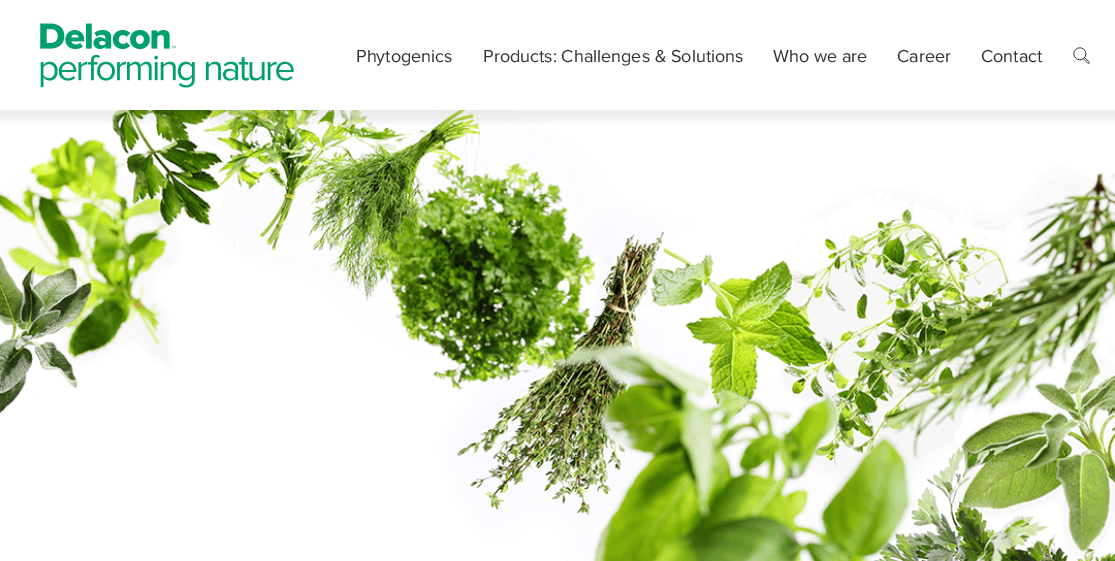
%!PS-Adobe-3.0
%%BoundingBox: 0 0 1115 561
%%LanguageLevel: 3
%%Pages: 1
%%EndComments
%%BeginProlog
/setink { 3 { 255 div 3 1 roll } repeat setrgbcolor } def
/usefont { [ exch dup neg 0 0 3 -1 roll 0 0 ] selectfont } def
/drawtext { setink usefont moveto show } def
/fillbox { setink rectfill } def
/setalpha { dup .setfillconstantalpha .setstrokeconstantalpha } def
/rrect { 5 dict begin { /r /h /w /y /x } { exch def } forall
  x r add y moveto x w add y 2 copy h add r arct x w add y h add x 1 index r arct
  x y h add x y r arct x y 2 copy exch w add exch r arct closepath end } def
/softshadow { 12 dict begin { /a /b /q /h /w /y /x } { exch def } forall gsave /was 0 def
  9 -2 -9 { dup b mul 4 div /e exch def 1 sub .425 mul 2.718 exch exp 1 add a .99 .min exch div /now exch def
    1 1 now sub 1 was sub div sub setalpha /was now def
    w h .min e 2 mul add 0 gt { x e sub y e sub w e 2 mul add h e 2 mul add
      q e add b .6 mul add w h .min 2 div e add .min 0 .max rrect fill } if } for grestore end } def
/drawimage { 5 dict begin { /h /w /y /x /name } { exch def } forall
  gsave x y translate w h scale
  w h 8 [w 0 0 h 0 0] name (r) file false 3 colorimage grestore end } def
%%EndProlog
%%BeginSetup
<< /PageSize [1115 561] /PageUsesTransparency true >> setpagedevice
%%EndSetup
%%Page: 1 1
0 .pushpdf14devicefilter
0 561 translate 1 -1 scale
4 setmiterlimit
0 0 1115 561 255 255 255 fillbox
(assets/img3.rgb) 0 110 1115 451 drawimage
gsave
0 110 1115 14 rectclip
0 0 0 setink
-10 -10 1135 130 0 7.5 0.07 softshadow
grestore
(assets/img1.rgb) 40 23 254 65 drawimage
(Phytogenics) 356 62 /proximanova-Regular 18 51 51 51 drawtext
(Products: Challenges & Solutions) 483 62 /proximanova-Regular 18 51 51 51 drawtext
(Who we are) 773 62 /proximanova-Regular 18 51 51 51 drawtext
(Career) 897 62 /proximanova-Regular 18 51 51 51 drawtext
(Contact) 981 62 /proximanova-Regular 18 51 51 51 drawtext
(assets/img2.rgb) 1073 47 17 18 drawimage
.poppdf14devicefilter showpage
%%EOF
